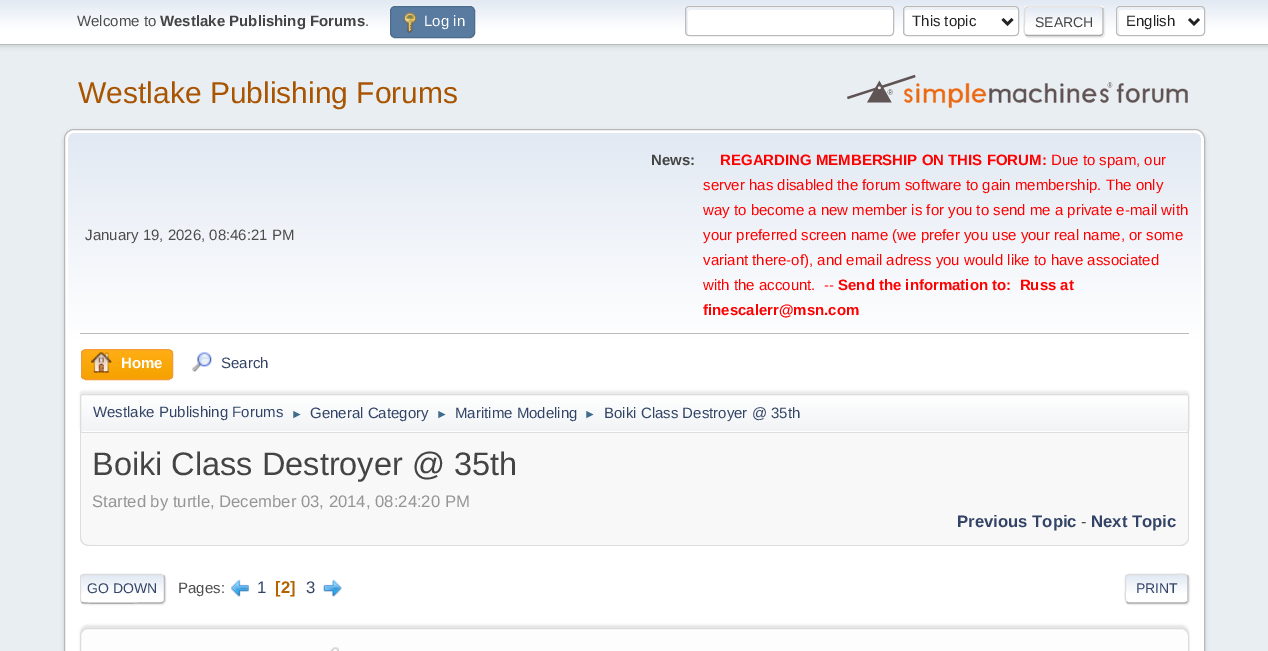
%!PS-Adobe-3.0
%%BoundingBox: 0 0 1268 651
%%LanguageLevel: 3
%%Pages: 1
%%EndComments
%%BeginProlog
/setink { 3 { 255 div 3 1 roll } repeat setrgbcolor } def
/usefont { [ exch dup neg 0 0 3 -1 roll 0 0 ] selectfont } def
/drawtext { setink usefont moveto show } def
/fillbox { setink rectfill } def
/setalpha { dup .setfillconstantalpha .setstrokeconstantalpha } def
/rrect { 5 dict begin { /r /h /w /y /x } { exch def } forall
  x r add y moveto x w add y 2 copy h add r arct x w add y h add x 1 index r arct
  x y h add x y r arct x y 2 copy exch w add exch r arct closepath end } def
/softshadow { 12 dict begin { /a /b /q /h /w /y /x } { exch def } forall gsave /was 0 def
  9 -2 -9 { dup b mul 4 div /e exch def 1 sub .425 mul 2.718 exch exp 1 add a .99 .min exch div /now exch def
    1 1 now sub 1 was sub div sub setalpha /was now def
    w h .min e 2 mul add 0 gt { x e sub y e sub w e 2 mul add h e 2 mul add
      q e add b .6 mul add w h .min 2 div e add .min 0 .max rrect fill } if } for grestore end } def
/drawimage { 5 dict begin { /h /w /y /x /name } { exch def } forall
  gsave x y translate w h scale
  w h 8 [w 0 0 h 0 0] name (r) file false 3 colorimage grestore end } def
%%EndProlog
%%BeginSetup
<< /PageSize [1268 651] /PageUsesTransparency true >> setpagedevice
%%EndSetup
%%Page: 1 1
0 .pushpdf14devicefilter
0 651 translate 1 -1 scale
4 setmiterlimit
0 0 1268 651 233 238 242 fillbox
0 0 0 setink
0 1 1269 45 0 2.5 0.16 softshadow
gsave 0 0 moveto 1268 0 lineto 1268 44 lineto 0 44 lineto closepath clip newpath
<< /ShadingType 2 /ColorSpace /DeviceRGB /Coords [634 0 634 44] /Extend [true true] /Function << /FunctionType 3 /Domain [0 1] /Functions [<< /FunctionType 2 /Domain [0 1] /C0 [0.886 0.914 0.953] /C1 [1 1 1] /N 1 >> << /FunctionType 2 /Domain [0 1] /C0 [1 1 1] /C1 [1 1 1] /N 1 >>] /Bounds [0.7] /Encode [0 1 0 1] >> >> shfill grestore
0 44 1268 1 187 187 187 fillbox
(Welcome to) 77 26 /LiberationSans-Regular 15 77 77 77 drawtext
(Westlake Publishing Forums) 160 26 /LiberationSans-Bold 15 68 68 68 drawtext
(.) 365 26 /LiberationSans-Regular 15 77 77 77 drawtext
89 123 159 setink
390.5 6.5 84 31 4.5 rrect gsave fill grestore
74 107 140 setink
stroke
(assets/img1.rgb) 403 12 14 21 drawimage
(Log in) 424 26 /LiberationSans-Regular 15 255 255 255 drawtext
685 6 209 30 4 rrect fill
236 241 248 setink
690 10 moveto 891 10 lineto 893 10 lineto 893 9 892 8 890 8 curveto 688 8 lineto 687 8 686 9 686 10 curveto 686 32 lineto 686 34 687 35 688 35 curveto 688 12 lineto 688 11 689 10 690 10 curveto closepath fill
187 187 187 setink
685.5 6.5 208 29 3.5 rrect stroke
255 255 255 setink
903 6 116 30 4 rrect fill
236 241 248 setink
908 10 moveto 1016 10 lineto 1018 10 lineto 1018 9 1017 8 1016 8 curveto 906 8 lineto 905 8 904 9 904 10 curveto 904 32 lineto 904 33 904 34 905 35 curveto 905 12 lineto 905 11 906 10 908 10 curveto closepath fill
187 187 187 setink
903.5 6.5 115 29 3.5 rrect stroke
34 34 34 setink
2.5 setlinewidth
1002.5 19 moveto 1007.5 24 lineto 1012.5 19 lineto stroke
(This topic) 912 26 /LiberationSans-Regular 15 34 34 34 drawtext
221 221 221 setink
1025 8 80 30 4 0.5 0.57 softshadow
gsave
1024 6 80 30 4 rrect clip newpath
gsave 1024 6 moveto 1104 6 lineto 1104 8 lineto 1024 8 lineto closepath clip newpath
<< /ShadingType 2 /ColorSpace /DeviceRGB /Coords [1064 -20 1064 7.5] /Extend [true true] /Function << /FunctionType 3 /Domain [0 1] /Functions [<< /FunctionType 2 /Domain [0 1] /C0 [0.886 0.914 0.953] /C1 [1 1 1] /N 1 >> << /FunctionType 2 /Domain [0 1] /C0 [1 1 1] /C1 [1 1 1] /N 1 >>] /Bounds [0.7] /Encode [0 1 0 1] >> >> shfill grestore
gsave 1024 8 moveto 1104 8 lineto 1104 35 lineto 1024 35 lineto closepath clip newpath
<< /ShadingType 2 /ColorSpace /DeviceRGB /Coords [1064 7.5 1064 35] /Extend [true true] /Function << /FunctionType 3 /Domain [0 1] /Functions [<< /FunctionType 2 /Domain [0 1] /C0 [0.886 0.914 0.953] /C1 [1 1 1] /N 1 >> << /FunctionType 2 /Domain [0 1] /C0 [1 1 1] /C1 [1 1 1] /N 1 >>] /Bounds [0.7] /Encode [0 1 0 1] >> >> shfill grestore
grestore
187 187 187 setink
1.2 setlinewidth
1102 8 moveto 1103 8.5 1103 9 1103 10 curveto 1103 32.5 lineto 1103 33.5 1103 34 1102 34.5 curveto stroke
170 170 170 setink
1102 34.5 moveto 1100.5 35.5 lineto 1027 35.5 lineto 1025.5 34.5 lineto stroke
221 221 221 setink
1025.5 34.5 moveto 1023 32.5 1024.5 24 1024.5 21 curveto 1024.5 4.5 1022 7 1039.5 7 curveto 1100 7 lineto 1102 8 lineto stroke
(SEARCH) 1035 27 /LiberationSans-Regular 14 68 68 68 drawtext
255 255 255 setink
1116 6 89 30 4 rrect fill
236 241 248 setink
1121 10 moveto 1202 10 lineto 1204 10 lineto 1204 9 1203 8 1202 8 curveto 1120 8 lineto 1119 8 1118 9 1118 10 curveto 1118 32 lineto 1118 33 1118 34 1119 35 curveto 1119 12 lineto 1119 11 1120 10 1121 10 curveto closepath fill
187 187 187 setink
1 setlinewidth
1116.5 6.5 88 29 3.5 rrect stroke
34 34 34 setink
2.5 setlinewidth
1189 19 moveto 1194 24 lineto 1199 19 lineto stroke
(English) 1126 26 /LiberationSans-Regular 15 34 34 34 drawtext
(Westlake Publishing Forums) 78 103 /LiberationSans-Regular 30 168 84 0 drawtext
(assets/img2.rgb) 847 74 341 34 drawimage
0 0 0 setink
64 131 1141 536 10 2 0.14 softshadow
255 255 255 setink
64.5 129.5 1140 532 9.5 rrect gsave fill grestore
184 184 184 setink
1 setlinewidth
stroke
gsave 76 133 moveto 1193 133 lineto 1197.5 133 1201 136.5 1201 141 curveto 1201 435 lineto 68 435 lineto 68 141 lineto 68 136.5 71.5 133 76 133 curveto closepath clip newpath
<< /ShadingType 2 /ColorSpace /DeviceRGB /Coords [634 132 634 435] /Extend [true true] /Function << /FunctionType 3 /Domain [0 1] /Functions [<< /FunctionType 2 /Domain [0 1] /C0 [0.886 0.914 0.953] /C1 [1 1 1] /N 1 >> << /FunctionType 2 /Domain [0 1] /C0 [1 1 1] /C1 [1 1 1] /N 1 >>] /Bounds [0.7] /Encode [0 1 0 1] >> >> shfill grestore
80 333 1109 1 187 187 187 fillbox
(January 19, 2026, 08:46:21 PM) 85 240 /LiberationSans-Regular 15 77 77 77 drawtext
(News:) 651 165 /LiberationSans-Bold 15 68 68 68 drawtext
(REGARDING MEMBERSHIP ON THIS FORUM:) 720 165 /LiberationSans-Bold 15 255 0 0 drawtext
(Due to spam, our) 1051 165 /LiberationSans-Regular 15 255 0 0 drawtext
(server has disabled the forum software to gain membership. The only) 703 190 /LiberationSans-Regular 15 255 0 0 drawtext
(way to become a new member is for you to send me a private e-mail with) 703 215 /LiberationSans-Regular 15 255 0 0 drawtext
(your preferred screen name \(we prefer you use your real name, or some) 703 240 /LiberationSans-Regular 15 255 0 0 drawtext
(variant there-of\), and email adress you would like to have associated) 703 265 /LiberationSans-Regular 15 255 0 0 drawtext
(with the account.  --) 703 290 /LiberationSans-Regular 15 255 0 0 drawtext
(Send the information to:  Russ at) 838 290 /LiberationSans-Bold 15 255 0 0 drawtext
(finescalerr@msn.com) 703 315 /LiberationSans-Bold 15 255 0 0 drawtext
gsave
81 349 92 31 5 rrect clip newpath
gsave 81 350 moveto 173 350 lineto 173 379 lineto 81 379 lineto closepath clip newpath
<< /ShadingType 2 /ColorSpace /DeviceRGB /Coords [127 350 127 379] /Extend [true true] /Function << /FunctionType 2 /Domain [0 1] /C0 [1 0.682 0.078] /C1 [0.961 0.631 0] /N 1 >> >> shfill grestore
grestore
244 154 58 setink
81.5 349.5 91 30 4.5 rrect stroke
(assets/img3.rgb) 91 352 21 21 drawimage
(Home) 121 368 /LiberationSans-Bold 15 255 255 255 drawtext
(assets/img4.rgb) 192 352 20 20 drawimage
(Search) 221 368 /LiberationSans-Regular 15 51 68 102 drawtext
0 0 0 setink
80 391 1109 39 2.5 1 0.08 softshadow
255 255 255 setink
80 394 1109 39 2.5 rrect fill
gsave 80 395 moveto 1189 395 lineto 1189 431 lineto 80 431 lineto closepath clip newpath
<< /ShadingType 2 /ColorSpace /DeviceRGB /Coords [634 395 634 431] /Extend [true true] /Function << /FunctionType 3 /Domain [0 1] /Functions [<< /FunctionType 2 /Domain [0 1] /C0 [1 1 1] /C1 [0.945 0.953 0.961] /N 1 >> << /FunctionType 2 /Domain [0 1] /C0 [0.945 0.953 0.961] /C1 [0.945 0.953 0.961] /N 1 >>] /Bounds [0.95] /Encode [0 1 0 1] >> >> shfill grestore
221 221 221 setink
80.5 394.5 1108 38 2 rrect stroke
(Westlake Publishing Forums) 93 417 /LiberationSans-Regular 15 51 68 102 drawtext
(►) 291 418 /LiberationSans-Regular 12 63 107 140 drawtext
(General Category) 310 418 /LiberationSans-Regular 15 51 68 102 drawtext
(►) 436 418 /LiberationSans-Regular 12 63 107 140 drawtext
(Maritime Modeling) 455 418 /LiberationSans-Regular 15 51 68 102 drawtext
(►) 584 418 /LiberationSans-Regular 12 63 107 140 drawtext
(Boiki Class Destroyer @ 35th) 604 418 /LiberationSans-Regular 15 51 68 102 drawtext
248 248 248 setink
80 433 moveto 1189 433 lineto 1189 537 lineto 1189 542 1185 546 1180 546 curveto 89 546 lineto 84 546 80 542 80 537 curveto closepath fill
221 221 221 setink
80 432 moveto 1189 432 lineto 1189 538 lineto 1189 542 1185 546 1180 546 curveto 89 546 lineto 84 546 80 542 80 538 curveto closepath 81 432 moveto 1188 432 lineto 1188 538 lineto 1188 542 1184 545 1180 545 curveto 89 545 lineto 85 545 81 542 81 538 curveto closepath eofill
(Boiki Class Destroyer @ 35th) 92 475 /LiberationSans-Regular 32.5 68 68 68 drawtext
(Started by turtle, December 03, 2014, 08:24:20 PM) 92 507 /LiberationSans-Regular 16.7 149 149 149 drawtext
(Previous Topic) 957 527 /LiberationSans-Bold 16.7 51 68 102 drawtext
(-) 1081 527 /LiberationSans-Regular 16.7 77 77 77 drawtext
(Next Topic) 1091 527 /LiberationSans-Bold 16.7 51 68 102 drawtext
221 221 221 setink
81 575 85 30 4 0.5 0.57 softshadow
255 255 255 setink
80 574 85 30 4 rrect fill
gsave
80 574 85 30 4 rrect clip newpath
gsave 80 575 moveto 165 575 lineto 165 603 lineto 80 603 lineto closepath clip newpath
<< /ShadingType 2 /ColorSpace /DeviceRGB /Coords [123 575 123 603] /Extend [true true] /Function << /FunctionType 3 /Domain [0 1] /Functions [<< /FunctionType 2 /Domain [0 1] /C0 [0.886 0.914 0.953] /C1 [1 1 1] /N 1 >> << /FunctionType 2 /Domain [0 1] /C0 [1 1 1] /C1 [1 1 1] /N 1 >>] /Bounds [0.7] /Encode [0 1 0 1] >> >> shfill grestore
gsave 80 603 moveto 165 603 lineto 165 604 lineto 80 604 lineto closepath clip newpath
<< /ShadingType 2 /ColorSpace /DeviceRGB /Coords [123 603 123 630] /Extend [true true] /Function << /FunctionType 3 /Domain [0 1] /Functions [<< /FunctionType 2 /Domain [0 1] /C0 [0.886 0.914 0.953] /C1 [1 1 1] /N 1 >> << /FunctionType 2 /Domain [0 1] /C0 [1 1 1] /C1 [1 1 1] /N 1 >>] /Bounds [0.7] /Encode [0 1 0 1] >> >> shfill grestore
grestore
187 187 187 setink
1.2 setlinewidth
163.5 575.5 moveto 164 576 164.5 576.5 164.5 577.5 curveto 164.5 600 lineto 164.5 601 164 601.5 163.5 602 curveto stroke
170 170 170 setink
163.5 602 moveto 161 603 lineto 148.5 603 lineto 141 603 84 604 82 602.5 curveto 81.5 602 lineto stroke
gsave
80 565 1109 48 rectclip
221 221 221 setink
81.5 602 moveto 79.5 600 80.5 595 80.5 592.5 curveto 80.5 572 76.5 574.5 96.5 574.5 curveto 161 574.5 lineto 163.5 575.5 lineto stroke
grestore
(GO DOWN) 87 593 /LiberationSans-Regular 14 51 68 102 drawtext
(Pages:) 178 593 /LiberationSans-Regular 15 77 77 77 drawtext
(assets/img5.rgb) 231 579 18 18 drawimage
(1) 257 593 /LiberationSans-Regular 16.7 51 68 102 drawtext
([2]) 275 593 /LiberationSans-Bold 16.7 180 97 0 drawtext
(3) 306 593 /LiberationSans-Regular 16.7 51 68 102 drawtext
(assets/img6.rgb) 323 579 19 18 drawimage
221 221 221 setink
1126 575 64 30 4 0.5 0.57 softshadow
255 255 255 setink
1125 574 64 30 4 rrect fill
gsave
1125 574 64 30 4 rrect clip newpath
gsave 1125 575 moveto 1189 575 lineto 1189 603 lineto 1125 603 lineto closepath clip newpath
<< /ShadingType 2 /ColorSpace /DeviceRGB /Coords [1157 575 1157 603] /Extend [true true] /Function << /FunctionType 3 /Domain [0 1] /Functions [<< /FunctionType 2 /Domain [0 1] /C0 [0.886 0.914 0.953] /C1 [1 1 1] /N 1 >> << /FunctionType 2 /Domain [0 1] /C0 [1 1 1] /C1 [1 1 1] /N 1 >>] /Bounds [0.7] /Encode [0 1 0 1] >> >> shfill grestore
gsave 1125 603 moveto 1189 603 lineto 1189 604 lineto 1125 604 lineto closepath clip newpath
<< /ShadingType 2 /ColorSpace /DeviceRGB /Coords [1157 603 1157 630] /Extend [true true] /Function << /FunctionType 3 /Domain [0 1] /Functions [<< /FunctionType 2 /Domain [0 1] /C0 [0.886 0.914 0.953] /C1 [1 1 1] /N 1 >> << /FunctionType 2 /Domain [0 1] /C0 [1 1 1] /C1 [1 1 1] /N 1 >>] /Bounds [0.7] /Encode [0 1 0 1] >> >> shfill grestore
grestore
187 187 187 setink
1187 575.5 moveto 1188 576 1188 576.5 1188 577.5 curveto 1188 600 lineto 1188 601 1188 601.5 1187 602 curveto stroke
170 170 170 setink
1187 602 moveto 1185.5 603 lineto 1128.5 603 lineto 1126.5 602 lineto stroke
221 221 221 setink
1126.5 602 moveto 1124.5 600 1125.5 591.5 1125.5 589 curveto 1125.5 573 1123 574.5 1138 574.5 curveto 1175.5 574.5 lineto 1176.5 574.5 1185 573 1187 575.5 curveto stroke
(PRINT) 1136 593 /LiberationSans-Regular 14 51 68 102 drawtext
0 0 0 setink
80 625 1109 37 8 1 0.1 softshadow
253 253 253 setink
80.5 628.5 1108 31 7.5 rrect gsave fill grestore
221 221 221 setink
1 setlinewidth
stroke
(assets/img7.rgb) 330 647 9 4 drawimage
.poppdf14devicefilter showpage
%%EOF
